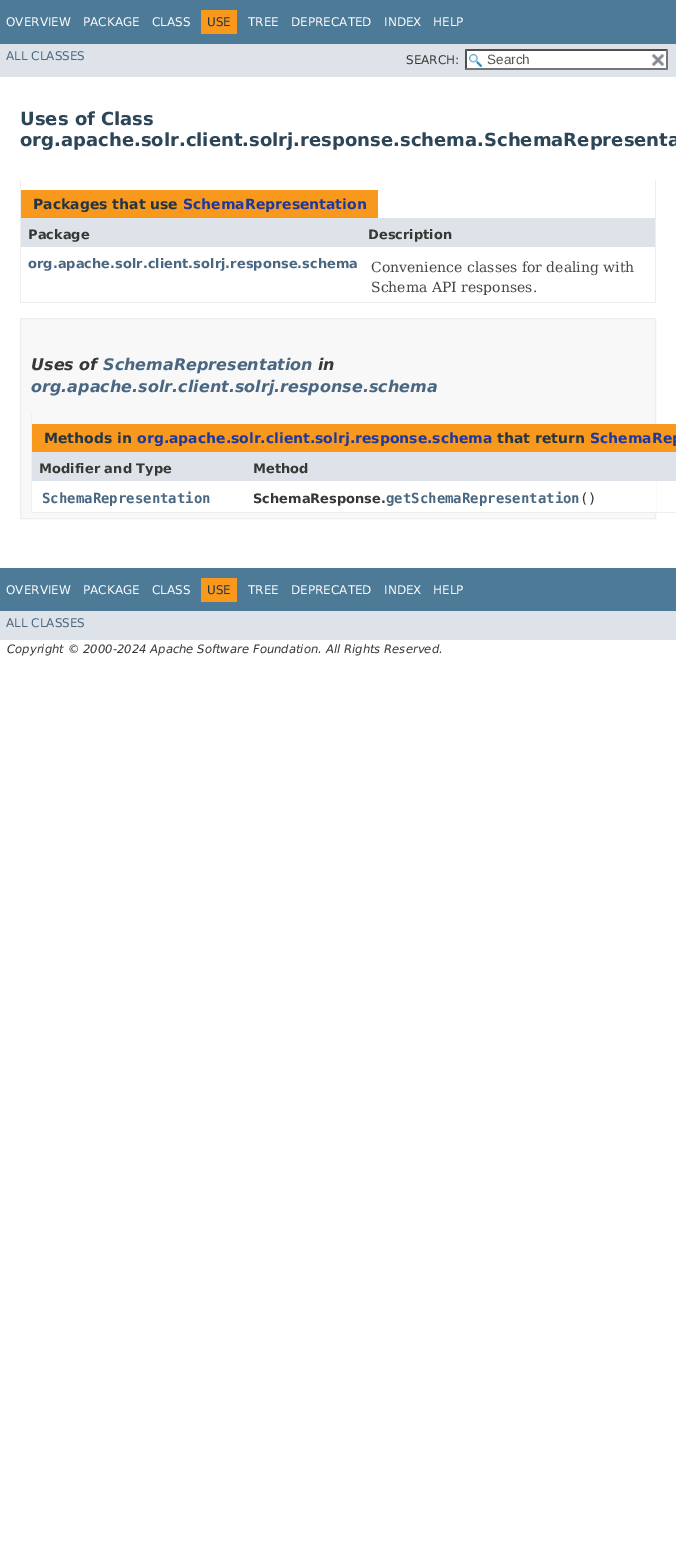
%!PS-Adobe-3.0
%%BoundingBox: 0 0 676 1559
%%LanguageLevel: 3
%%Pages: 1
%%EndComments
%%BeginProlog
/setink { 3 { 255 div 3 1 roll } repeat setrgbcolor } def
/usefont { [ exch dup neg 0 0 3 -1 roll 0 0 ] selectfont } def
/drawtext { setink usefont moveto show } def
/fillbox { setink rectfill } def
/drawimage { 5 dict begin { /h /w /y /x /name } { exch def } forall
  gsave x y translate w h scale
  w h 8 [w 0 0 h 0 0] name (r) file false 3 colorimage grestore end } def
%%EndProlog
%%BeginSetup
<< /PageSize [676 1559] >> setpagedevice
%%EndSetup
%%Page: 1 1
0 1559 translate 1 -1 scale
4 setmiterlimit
0 0 676 1559 255 255 255 fillbox
0 0 676 44 77 122 151 fillbox
(OVERVIEW) 6 26 /DejaVuSans-Regular 12 255 255 255 drawtext
(PACKAGE) 83 26 /DejaVuSans-Regular 12 255 255 255 drawtext
(CLASS) 152 26 /DejaVuSans-Regular 12 255 255 255 drawtext
201 10 36 24 248 152 29 fillbox
(USE) 207 26 /DejaVuSans-Regular 12 37 52 65 drawtext
(TREE) 248 26 /DejaVuSans-Regular 12 255 255 255 drawtext
(DEPRECATED) 291 26 /DejaVuSans-Regular 12 255 255 255 drawtext
(INDEX) 384 26 /DejaVuSans-Regular 12 255 255 255 drawtext
(HELP) 433 26 /DejaVuSans-Regular 12 255 255 255 drawtext
0 44 676 33 222 227 233 fillbox
(ALL CLASSES) 6 60 /DejaVuSans-Regular 12 74 103 130 drawtext
(SEARCH:) 406 64 /DejaVuSans-Regular 12 53 56 51 drawtext
465 49 203 21 255 255 255 fillbox
(assets/img1.rgb) 469 54 13 13 drawimage
79 79 79 setink
465 49 moveto 668 49 lineto 666 51 lineto 467 51 lineto closepath fill
118 118 118 setink
668 49 moveto 668 70 lineto 666 68 lineto 666 51 lineto closepath fill
668 70 moveto 465 70 lineto 467 68 lineto 666 68 lineto closepath fill
79 79 79 setink
465 70 moveto 465 49 lineto 467 51 lineto 467 68 lineto closepath fill
(Search) 487 64 /LiberationSans-Regular 13.5 84 84 84 drawtext
(assets/img2.rgb) 651 54 14 12 drawimage
(Uses of Class) 20 125 /DejaVuSans-Bold 18 44 69 87 drawtext
(org.apache.solr.client.solrj.response.schema.SchemaRepresenta) 20 146 /DejaVuSans-Bold 18 44 69 87 drawtext
655 180 1 123 238 238 238 fillbox
20 302 636 1 238 238 238 fillbox
20 180 1 123 238 238 238 fillbox
21 190 357 28 248 152 29 fillbox
(Packages that use) 33 209 /DejaVuSans-Bold 14 37 52 65 drawtext
(SchemaRepresentation) 183 209 /DejaVuSans-Bold 14 31 56 156 drawtext
21 218 634 29 222 227 233 fillbox
(Package) 28 239 /DejaVuSans-Bold 13 53 56 51 drawtext
(Description) 368 239 /DejaVuSans-Bold 13 53 56 51 drawtext
(org.apache.solr.client.solrj.response.schema) 28 268 /DejaVuSans-Bold 13 74 103 130 drawtext
(Convenience classes for dealing with) 371 272 /DejaVuSerif-Regular 14 71 71 71 drawtext
(Schema API responses.) 371 292 /DejaVuSerif-Regular 14 71 71 71 drawtext
248 248 248 setink
20.5 318.5 moveto 655.5 318.5 lineto 655.5 518.5 lineto 20.5 518.5 lineto closepath gsave fill grestore
237 237 237 setink
stroke
(Uses of) 31 370 /DejaVuSans-BoldItalic 16 53 56 51 drawtext
(SchemaRepresentation) 103 370 /DejaVuSans-BoldItalic 16 74 103 130 drawtext
(in) 318 370 /DejaVuSans-BoldItalic 16 53 56 51 drawtext
(org.apache.solr.client.solrj.response.schema) 31 392 /DejaVuSans-BoldItalic 16 74 103 130 drawtext
31 512 645 1 238 238 238 fillbox
31 414 1 99 238 238 238 fillbox
32 424 644 28 248 152 29 fillbox
(Methods in) 44 443 /DejaVuSans-Bold 14 37 52 65 drawtext
(org.apache.solr.client.solrj.response.schema) 137 443 /DejaVuSans-Bold 14 31 56 156 drawtext
(that return) 497 443 /DejaVuSans-Bold 14 37 52 65 drawtext
(SchemaRep) 590 443 /DejaVuSans-Bold 14 31 56 156 drawtext
32 452 644 29 222 227 233 fillbox
(Modifier and Type) 39 473 /DejaVuSans-Bold 13 53 56 51 drawtext
(Method) 253 473 /DejaVuSans-Bold 13 53 56 51 drawtext
32 481 624 31 255 255 255 fillbox
(SchemaRepresentation) 42 503 /DejaVuSansMono-Bold 14 74 103 130 drawtext
(SchemaResponse.) 253 503 /DejaVuSans-Bold 13 53 56 51 drawtext
(getSchemaRepresentation) 386 503 /DejaVuSansMono-Bold 14 74 103 130 drawtext
(\(\)) 580 503 /DejaVuSansMono-Regular 14 53 56 51 drawtext
0 568 676 43 77 122 151 fillbox
(OVERVIEW) 6 594 /DejaVuSans-Regular 12 255 255 255 drawtext
(PACKAGE) 83 594 /DejaVuSans-Regular 12 255 255 255 drawtext
(CLASS) 152 594 /DejaVuSans-Regular 12 255 255 255 drawtext
201 578 36 24 248 152 29 fillbox
(USE) 207 594 /DejaVuSans-Regular 12 37 52 65 drawtext
(TREE) 248 594 /DejaVuSans-Regular 12 255 255 255 drawtext
(DEPRECATED) 291 594 /DejaVuSans-Regular 12 255 255 255 drawtext
(INDEX) 384 594 /DejaVuSans-Regular 12 255 255 255 drawtext
(HELP) 433 594 /DejaVuSans-Regular 12 255 255 255 drawtext
0 611 676 29 222 227 233 fillbox
(ALL CLASSES) 6 627 /DejaVuSans-Regular 12 74 103 130 drawtext
(Copyright © 2000-2024 Apache Software Foundation. All Rights Reserved.) 7 653 /DejaVuSans-Italic 11.65 53 56 51 drawtext
showpage
%%EOF
